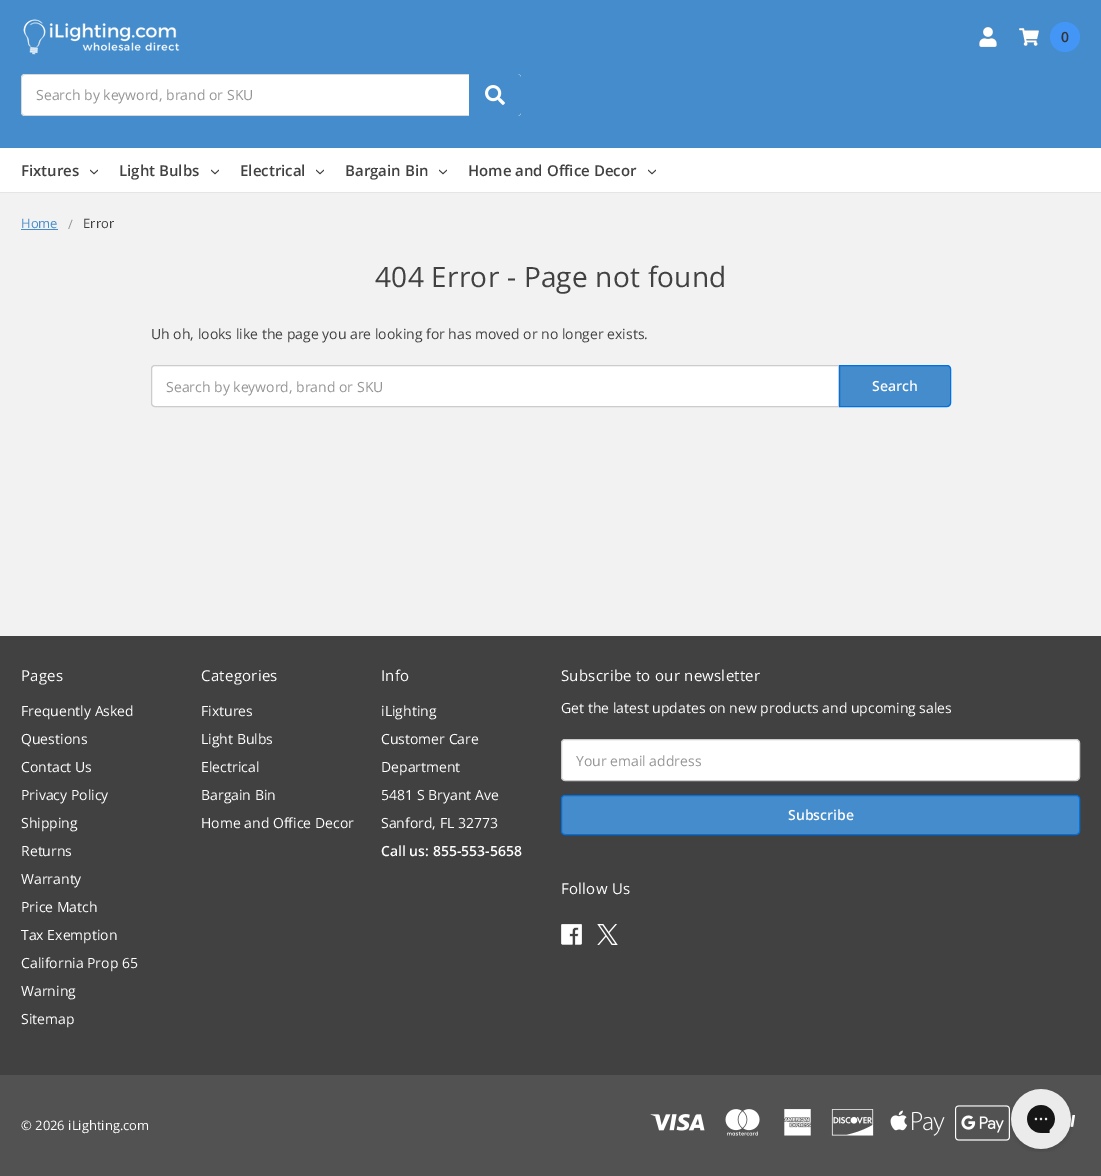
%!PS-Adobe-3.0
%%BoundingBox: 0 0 1101 1176
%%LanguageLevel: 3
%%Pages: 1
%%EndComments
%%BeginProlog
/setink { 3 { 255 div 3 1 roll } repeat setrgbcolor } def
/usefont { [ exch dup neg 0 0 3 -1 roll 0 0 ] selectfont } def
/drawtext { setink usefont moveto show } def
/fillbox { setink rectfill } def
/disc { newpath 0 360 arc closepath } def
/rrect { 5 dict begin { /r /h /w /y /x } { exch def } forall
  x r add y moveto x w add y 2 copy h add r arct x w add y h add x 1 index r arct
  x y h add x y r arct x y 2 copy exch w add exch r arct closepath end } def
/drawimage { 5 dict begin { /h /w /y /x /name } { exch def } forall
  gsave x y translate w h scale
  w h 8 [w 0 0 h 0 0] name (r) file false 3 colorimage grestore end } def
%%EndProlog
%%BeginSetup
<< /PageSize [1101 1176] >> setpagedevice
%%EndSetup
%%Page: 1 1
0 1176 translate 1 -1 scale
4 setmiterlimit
0 0 1101 1176 242 242 242 fillbox
0 0 1101 148 68 140 203 fillbox
0 192 1101 1 229 229 229 fillbox
(assets/img1.rgb) 23 19 157 36 drawimage
(assets/img2.rgb) 979 27 18 20 drawimage
(assets/img3.rgb) 1019 28 20 18 drawimage
68 150 246 setink
1065 37 15 disc fill
(0) 1061 42 /OpenSans-SemiBold 14 51 51 51 drawtext
255 255 255 setink
21 74 500 42 4 rrect fill
217 217 217 setink
25 74 moveto 23 74 21 76 21 78 curveto 21 112 lineto 21 114 23 116 25 116 curveto 517 116 lineto 518 116 519 116 520 115 curveto 25 115 lineto 23 115 22 114 22 112 curveto 22 78 lineto 22 76 23 75 25 75 curveto 520 75 lineto 517 74 lineto closepath 520 75 moveto 520 115 lineto 521 114 521 113 521 112 curveto 521 78 lineto 521 77 521 76 520 75 curveto closepath eofill
(Search by keyword, brand or SKU) 36 100 /OpenSans-Regular 14 149 149 149 drawtext
68 140 203 setink
469 74 moveto 517 74 lineto 519 74 521 76 521 78 curveto 521 112 lineto 521 114 519 116 517 116 curveto 469 116 lineto closepath fill
(assets/img4.rgb) 485 85 20 20 drawimage
0 148 1101 44 255 255 255 fillbox
(Fixtures) 21 176 /OpenSans-SemiBold 15 65 65 65 drawtext
(assets/img5.rgb) 90 169 8 6 drawimage
(Light Bulbs) 119 176 /OpenSans-SemiBold 15 65 65 65 drawtext
(assets/img5.rgb) 211 169 8 6 drawimage
(Electrical) 240 176 /OpenSans-SemiBold 15 65 65 65 drawtext
(assets/img5.rgb) 316 169 8 6 drawimage
(Bargain Bin) 345 176 /OpenSans-SemiBold 15 65 65 65 drawtext
(assets/img5.rgb) 439 169 8 6 drawimage
(Home and Office Decor) 468 176 /OpenSans-SemiBold 15 65 65 65 drawtext
(assets/img5.rgb) 648 169 8 6 drawimage
(Home) 21 228 /OpenSans-Regular 13 68 140 203 drawtext
21 229 37 1 68 140 203 fillbox
(/) 68 229 /OpenSans-Regular 13 149 149 149 drawtext
(Error) 83 228 /OpenSans-Regular 13 65 65 65 drawtext
/OpenSans-Regular 28 usefont
375 287 moveto 0.25 0 (404 Error - Page not found) ashow
(Uh oh, looks like the page you are looking for has moved or no longer exists.) 151 339 /OpenSans-Regular 14 65 65 65 drawtext
255 255 255 setink
155 365.5 moveto 838.5 365.5 lineto 838.5 406.5 lineto 155 406.5 lineto 153 406.5 151.5 405 151.5 403 curveto 151.5 369 lineto 151.5 367 153 365.5 155 365.5 curveto closepath gsave fill grestore
204 204 204 setink
stroke
(Search by keyword, brand or SKU) 166 392 /OpenSans-Regular 14 149 149 149 drawtext
68 140 203 setink
839.5 365.5 moveto 947 365.5 lineto 949 365.5 950.5 367 950.5 369 curveto 950.5 403 lineto 950.5 405 949 406.5 947 406.5 curveto 839.5 406.5 lineto closepath gsave fill grestore
0 113 227 setink
stroke
(Search) 872 391 /OpenSans-SemiBold 14 255 255 255 drawtext
0 636 1101 439 65 65 65 fillbox
/OpenSans-Regular 15 usefont
255 255 255 setink
21 681 moveto 0.25 0 (Pages) ashow
(Frequently Asked) 21 716 /OpenSans-Regular 14 255 255 255 drawtext
(Questions) 21 744 /OpenSans-Regular 14 255 255 255 drawtext
(Contact Us) 21 772 /OpenSans-Regular 14 255 255 255 drawtext
(Privacy Policy) 21 800 /OpenSans-Regular 14 255 255 255 drawtext
(Shipping) 21 828 /OpenSans-Regular 14 255 255 255 drawtext
(Returns) 21 856 /OpenSans-Regular 14 255 255 255 drawtext
(Warranty) 21 884 /OpenSans-Regular 14 255 255 255 drawtext
(Price Match) 21 912 /OpenSans-Regular 14 255 255 255 drawtext
(Tax Exemption) 21 940 /OpenSans-Regular 14 255 255 255 drawtext
(California Prop 65) 21 968 /OpenSans-Regular 14 255 255 255 drawtext
(Warning) 21 996 /OpenSans-Regular 14 255 255 255 drawtext
(Sitemap) 21 1024 /OpenSans-Regular 14 255 255 255 drawtext
/OpenSans-Regular 15 usefont
201 681 moveto 0.25 0 (Categories) ashow
(Fixtures) 201 716 /OpenSans-Regular 14 255 255 255 drawtext
(Light Bulbs) 201 744 /OpenSans-Regular 14 255 255 255 drawtext
(Electrical) 201 772 /OpenSans-Regular 14 255 255 255 drawtext
(Bargain Bin) 201 800 /OpenSans-Regular 14 255 255 255 drawtext
(Home and Office Decor) 201 828 /OpenSans-Regular 14 255 255 255 drawtext
/OpenSans-Regular 15 usefont
381 681 moveto 0.25 0 (Info) ashow
(iLighting) 381 716 /OpenSans-Regular 14 255 255 255 drawtext
(Customer Care) 381 744 /OpenSans-Regular 14 255 255 255 drawtext
(Department) 381 772 /OpenSans-Regular 14 255 255 255 drawtext
(5481 S Bryant Ave) 381 800 /OpenSans-Regular 14 255 255 255 drawtext
(Sanford, FL 32773) 381 828 /OpenSans-Regular 14 255 255 255 drawtext
(Call us: 855-553-5658) 381 856 /OpenSans-SemiBold 14 255 255 255 drawtext
/OpenSans-Regular 15 usefont
561 681 moveto 0.25 0 (Subscribe to our newsletter) ashow
(Get the latest updates on new products and upcoming sales) 561 713 /OpenSans-Regular 14 255 255 255 drawtext
561.5 739.5 518 41 3.5 rrect gsave fill grestore
204 204 204 setink
stroke
(Your email address) 576 766 /OpenSans-Regular 14 149 149 149 drawtext
68 140 203 setink
561.5 795.5 518 39 3.5 rrect gsave fill grestore
0 113 227 setink
stroke
(Subscribe) 788 820 /OpenSans-SemiBold 14 255 255 255 drawtext
/OpenSans-Regular 15 usefont
561 894 moveto 0.25 0 (Follow Us) ashow
(assets/img6.rgb) 561 924 21 21 drawimage
(assets/img7.rgb) 597 924 21 21 drawimage
0 1075 1101 101 82 82 82 fillbox
(© 2026 iLighting.com) 21 1130 /OpenSans-Regular 13 255 255 255 drawtext
(assets/img8.rgb) 650 1114 55 17 drawimage
(assets/img9.rgb) 725 1109 35 27 drawimage
(assets/img10.rgb) 784 1109 27 27 drawimage
(assets/img11.rgb) 831 1109 43 27 drawimage
(assets/img12.rgb) 890 1110 55 26 drawimage
(assets/img13.rgb) 955 1105 55 36 drawimage
(assets/img14.rgb) 1069 1115 6 12 drawimage
(assets/img15.rgb) 1009 1089 64 63 drawimage
showpage
%%EOF
